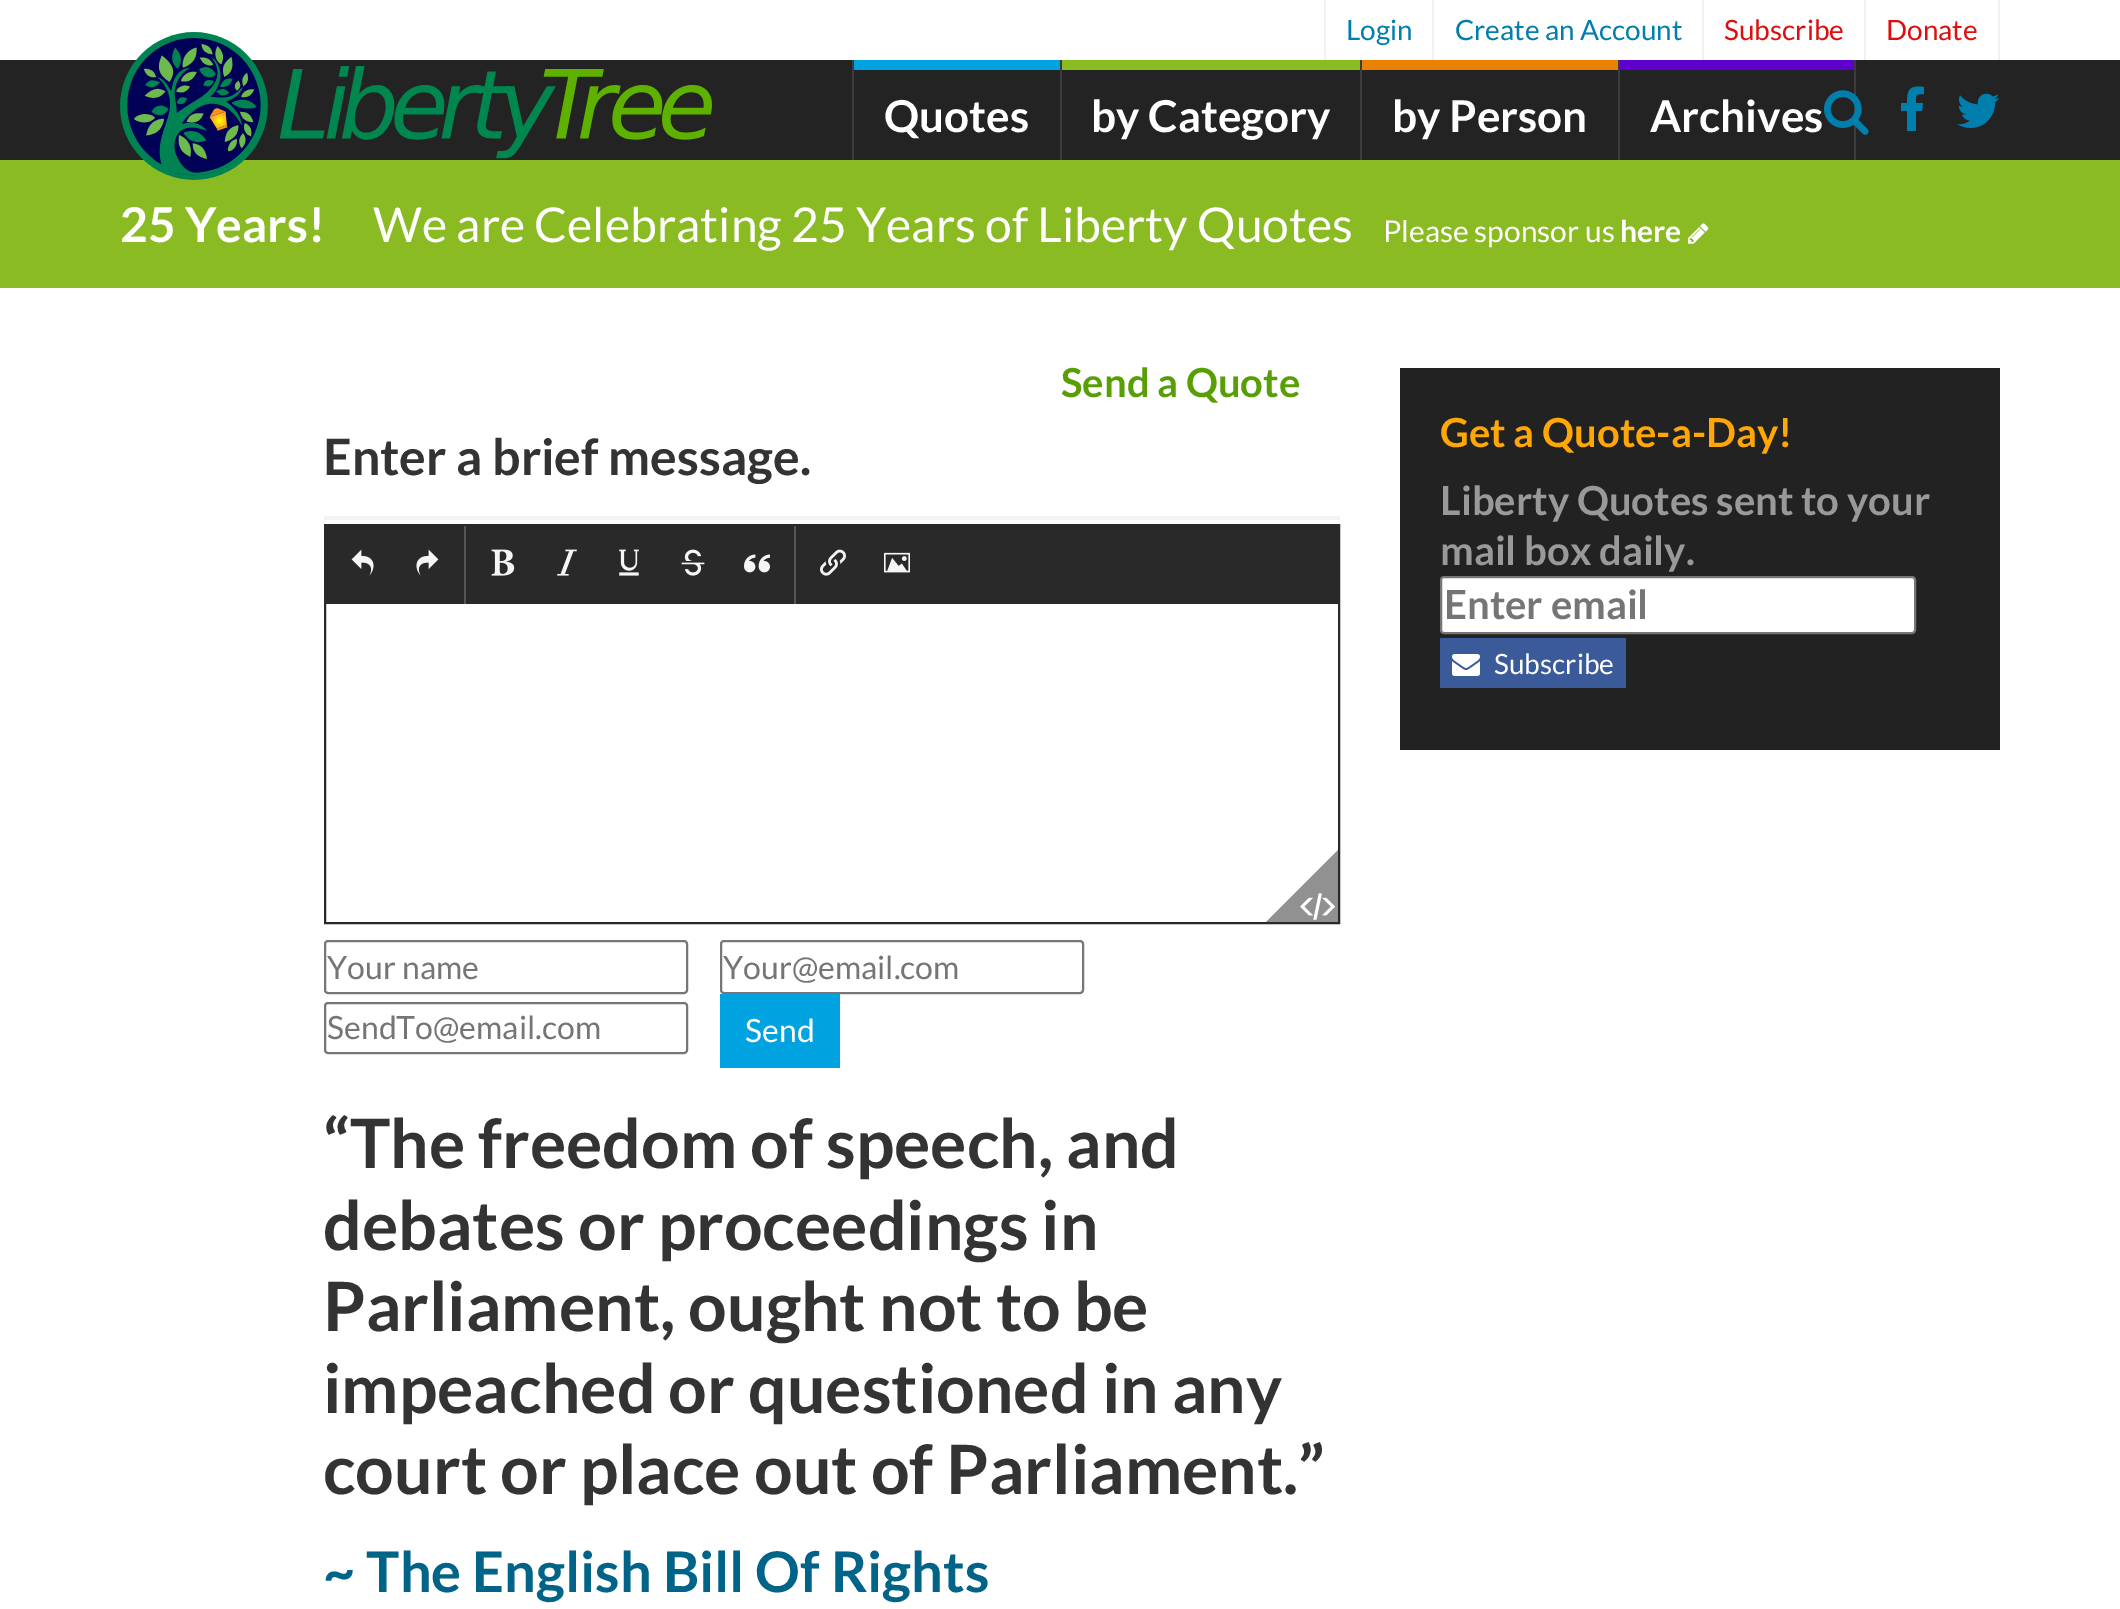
%!PS-Adobe-3.0
%%BoundingBox: 0 0 2120 1609
%%LanguageLevel: 3
%%Pages: 1
%%EndComments
%%BeginProlog
/setink { 3 { 255 div 3 1 roll } repeat setrgbcolor } def
/usefont { [ exch dup neg 0 0 3 -1 roll 0 0 ] selectfont } def
/drawtext { setink usefont moveto show } def
/fillbox { setink rectfill } def
/rrect { 5 dict begin { /r /h /w /y /x } { exch def } forall
  x r add y moveto x w add y 2 copy h add r arct x w add y h add x 1 index r arct
  x y h add x y r arct x y 2 copy exch w add exch r arct closepath end } def
/drawimage { 5 dict begin { /h /w /y /x /name } { exch def } forall
  gsave x y translate w h scale
  w h 8 [w 0 0 h 0 0] name (r) file false 3 colorimage grestore end } def
%%EndProlog
%%BeginSetup
<< /PageSize [2120 1609] >> setpagedevice
%%EndSetup
%%Page: 1 1
0 1609 translate 1 -1 scale
4 setmiterlimit
0 0 2120 1609 255 255 255 fillbox
0 60 2120 100 35 35 35 fillbox
0 160 2120 128 138 187 34 fillbox
(assets/img1.rgb) 120 32 592 148 drawimage
1324 0 2 60 241 241 241 fillbox
1432 0 2 60 241 241 241 fillbox
(Login) 1346 40 /Lato-Regular 28 0 126 172 drawtext
1702 0 2 60 241 241 241 fillbox
(Create an Account) 1455 40 /Lato-Regular 28 0 126 172 drawtext
1864 0 2 60 241 241 241 fillbox
(Subscribe) 1724 40 /Lato-Regular 28 221 14 14 drawtext
1998 0 2 60 241 241 241 fillbox
(Donate) 1886 40 /Lato-Regular 28 221 14 14 drawtext
1060 60 2 100 60 60 60 fillbox
852 60 2 100 60 60 60 fillbox
854 60 206 10 0 163 223 fillbox
(Quotes) 884 132 /Lato-Bold 44 255 255 255 drawtext
1360 60 2 100 60 60 60 fillbox
1062 60 298 10 138 187 34 fillbox
(by Category) 1091 132 /Lato-Bold 44 255 255 255 drawtext
1618 60 2 100 60 60 60 fillbox
1362 60 256 10 236 128 3 fillbox
(by Person) 1392 132 /Lato-Bold 44 255 255 255 drawtext
1854 60 2 100 60 60 60 fillbox
1620 60 234 10 96 0 206 fillbox
(Archives) 1650 132 /Lato-Bold 44 255 255 255 drawtext
(assets/img2.rgb) 1824 90 45 45 drawimage
0 126 172 setink
1924 87 moveto 1924 94 lineto 1915 94 1916 95 1916 103 curveto 1923 103 lineto 1922 111 lineto 1916 111 lineto 1916 131 lineto 1907 131 lineto 1907 111 lineto 1901 111 lineto 1901 103 lineto 1907 103 lineto 1907 90 1909 85 1924 87 curveto closepath fill
(assets/img3.rgb) 1957 93 43 35 drawimage
(25 Years!) 120 242 /Lato-Bold 48 255 255 255 drawtext
(We are Celebrating 25 Years of Liberty Quotes) 373 242 /Lato-Regular 48 255 255 255 drawtext
(Please sponsor us) 1383 242 /Lato-Regular 30 255 255 255 drawtext
(here) 1620 242 /Lato-Bold 30 255 255 255 drawtext
(assets/img4.rgb) 1688 223 21 21 drawimage
(Send a Quote) 1061 397 /Lato-Bold 40 87 159 4 drawtext
(Enter a brief message.) 323 475 /Lato-Bold 50 51 51 51 drawtext
324 516 1016 4 243 243 243 fillbox
41 41 41 setink
2 setlinewidth
325 525 1014 398 rectstroke
326 526 1012 78 41 41 41 fillbox
464 526 2 78 85 85 85 fillbox
(assets/img5.rgb) 351 549 23 27 drawimage
(assets/img6.rgb) 416 549 23 27 drawimage
794 526 2 78 85 85 85 fillbox
(assets/img7.rgb) 491 549 24 27 drawimage
(assets/img8.rgb) 557 549 20 27 drawimage
(assets/img9.rgb) 619 549 20 27 drawimage
(assets/img10.rgb) 681 549 24 27 drawimage
(assets/img11.rgb) 744 554 26 19 drawimage
(assets/img12.rgb) 820 549 26 27 drawimage
(assets/img13.rgb) 884 552 26 21 drawimage
145 145 145 setink
1338 922 moveto 1266 922 lineto 1338 850 lineto closepath fill
(assets/img14.rgb) 1300 893 36 27 drawimage
118 118 118 setink
325 941 362 52 3 rrect stroke
(Your name) 327 979 /Lato-Regular 32 117 117 117 drawtext
118 118 118 setink
721 941 362 52 3 rrect stroke
(Your@email.com) 723 979 /Lato-Regular 32 117 117 117 drawtext
118 118 118 setink
325 1003 362 50 3 rrect stroke
(SendTo@email.com) 327 1039 /Lato-Regular 32 117 117 117 drawtext
720 994 120 74 0 163 223 fillbox
(Send) 745 1042 /Lato-Regular 32 255 255 255 drawtext
(“The freedom of speech, and) 323 1168 /Lato-Bold 68 51 51 51 drawtext
(debates or proceedings in) 323 1250 /Lato-Bold 68 51 51 51 drawtext
(Parliament, ought not to be) 323 1331 /Lato-Bold 68 51 51 51 drawtext
(impeached or questioned in any) 323 1413 /Lato-Bold 68 51 51 51 drawtext
(court or place out of Parliament.”) 323 1494 /Lato-Bold 68 51 51 51 drawtext
(~ The English Bill Of Rights) 323 1592 /Lato-Bold 56 0 99 136 drawtext
1400 368 600 382 34 34 34 fillbox
(Get a Quote-a-Day!) 1440 447 /Lato-Bold 40 255 167 5 drawtext
(Liberty Quotes sent to your) 1440 515 /Lato-Bold 40 153 153 153 drawtext
(mail box daily.) 1440 565 /Lato-Bold 40 153 153 153 drawtext
255 255 255 setink
1441 577 474 56 3 rrect gsave fill grestore
118 118 118 setink
stroke
(Enter email) 1444 619 /Lato-Bold 40 117 117 117 drawtext
1440 638 186 50 59 90 153 fillbox
(assets/img15.rgb) 1452 654 28 22 drawimage
(Subscribe) 1494 674 /Lato-Regular 28 255 255 255 drawtext
showpage
%%EOF
